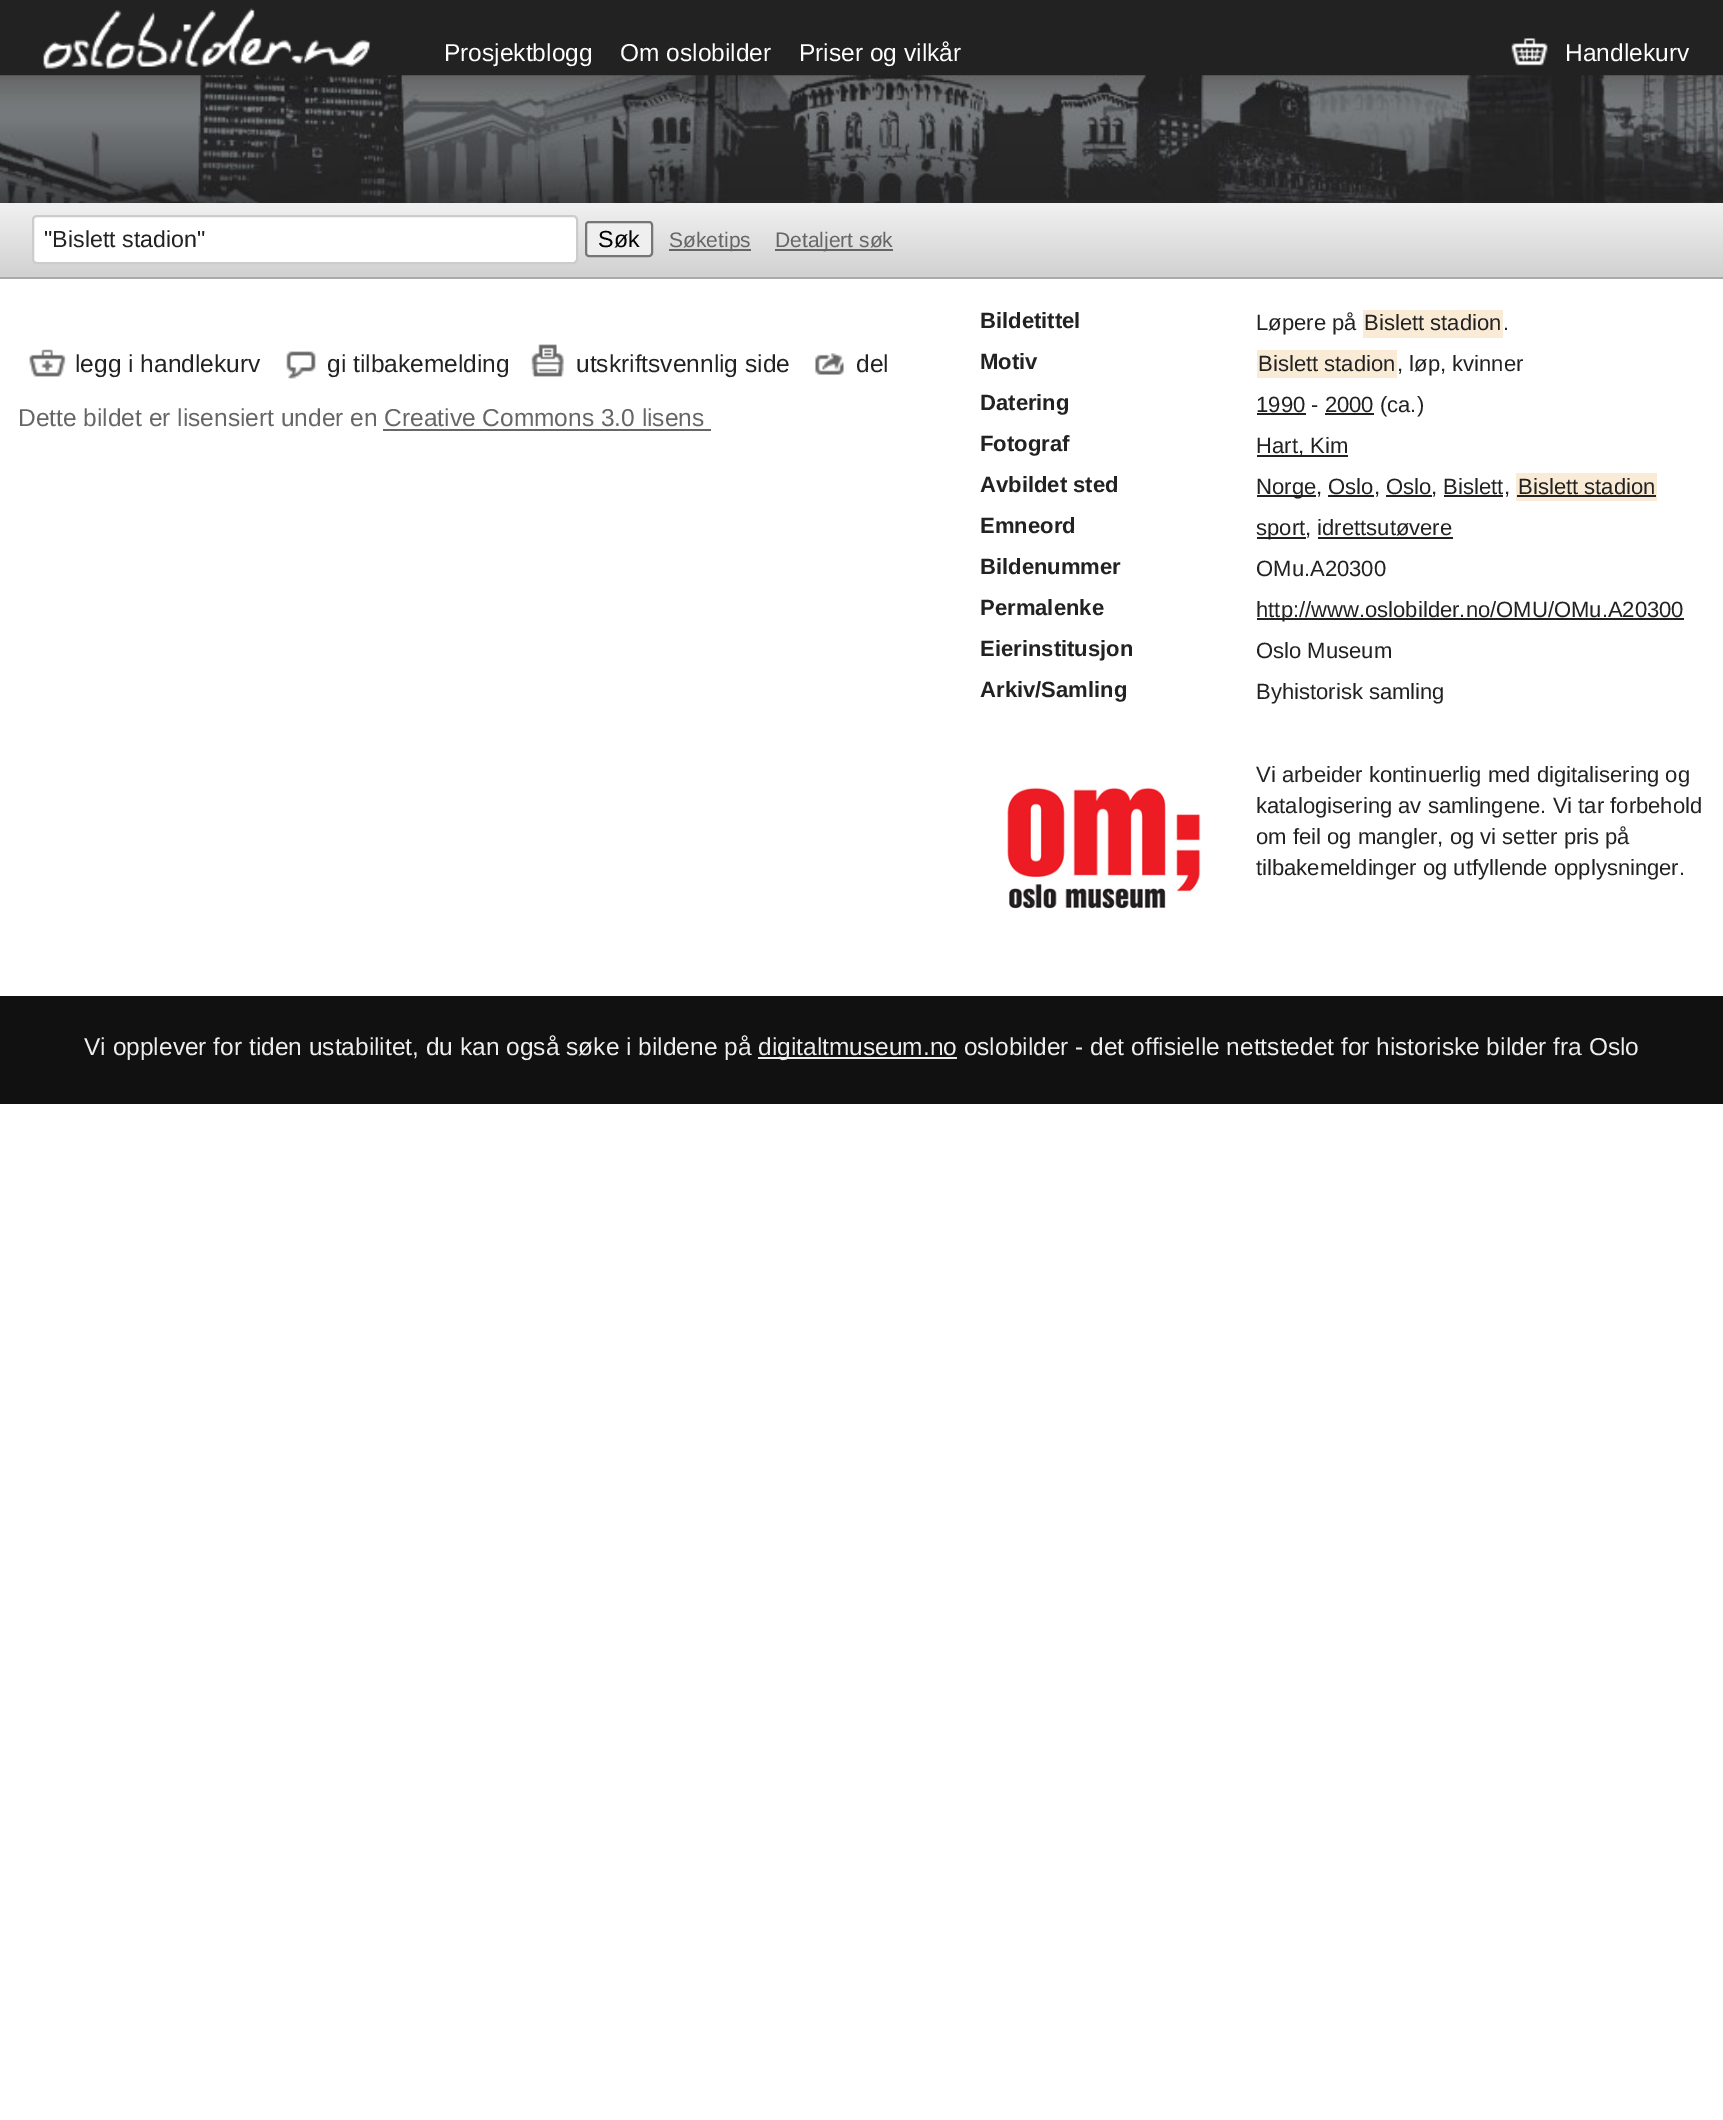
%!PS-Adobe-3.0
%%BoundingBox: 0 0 1723 2120
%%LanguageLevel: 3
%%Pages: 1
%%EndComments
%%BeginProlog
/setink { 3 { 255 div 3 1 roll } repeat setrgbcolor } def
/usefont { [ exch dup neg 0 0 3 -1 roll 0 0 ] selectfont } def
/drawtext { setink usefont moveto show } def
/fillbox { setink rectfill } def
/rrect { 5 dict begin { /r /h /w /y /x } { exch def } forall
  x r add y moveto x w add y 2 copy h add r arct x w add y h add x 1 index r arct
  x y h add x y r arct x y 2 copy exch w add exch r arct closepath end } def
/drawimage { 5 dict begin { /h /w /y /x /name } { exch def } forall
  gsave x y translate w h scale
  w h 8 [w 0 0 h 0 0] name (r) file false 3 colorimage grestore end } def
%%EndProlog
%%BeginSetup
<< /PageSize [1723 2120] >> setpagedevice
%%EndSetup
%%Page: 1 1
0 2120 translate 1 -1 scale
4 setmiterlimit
0 0 1723 2120 255 255 255 fillbox
0 0 1723 76 34 34 34 fillbox
(assets/img1.rgb) 0 75 1723 128 drawimage
(assets/img2.rgb) 43 8 328 61 drawimage
(Prosjektblogg) 444 61 /LiberationSans-Regular 24.5 255 255 255 drawtext
(Om oslobilder) 620 61 /LiberationSans-Regular 24.5 255 255 255 drawtext
(Priser og vilkår) 799 61 /LiberationSans-Regular 24.5 255 255 255 drawtext
(assets/img3.rgb) 1511 38 37 28 drawimage
(Handlekurv) 1565 61 /LiberationSans-Regular 24.5 255 255 255 drawtext
gsave 0 203 moveto 1723 203 lineto 1723 277 lineto 0 277 lineto closepath clip newpath
<< /ShadingType 2 /ColorSpace /DeviceRGB /Coords [862 203 862 277] /Extend [true true] /Function << /FunctionType 2 /Domain [0 1] /C0 [0.945 0.945 0.945] /C1 [0.82 0.82 0.82] /N 1 >> >> shfill grestore
0 277 1723 2 170 170 170 fillbox
255 255 255 setink
33 216 544 47 4 rrect gsave fill grestore
204 204 204 setink
2 setlinewidth
stroke
("Bislett stadion") 44 247 /LiberationSans-Regular 23.25 34 34 34 drawtext
239 239 239 setink
586 222 66 34 3 rrect gsave fill grestore
118 118 118 setink
stroke
(Søk) 598 247 /LiberationSans-Regular 23.25 0 0 0 drawtext
669 249 82 2 102 102 102 fillbox
(Søketips) 669 247 /LiberationSans-Regular 21 102 102 102 drawtext
775 249 118 2 102 102 102 fillbox
(Detaljert søk) 775 247 /LiberationSans-Regular 21 102 102 102 drawtext
(assets/img4.rgb) 29 349 37 28 drawimage
(legg i handlekurv) 75 372 /LiberationSans-Regular 24.5 34 34 34 drawtext
(assets/img5.rgb) 286 351 30 28 drawimage
(gi tilbakemelding) 327 372 /LiberationSans-Regular 24.5 34 34 34 drawtext
(assets/img6.rgb) 531 344 33 33 drawimage
(utskriftsvennlig side) 576 372 /LiberationSans-Regular 24.5 34 34 34 drawtext
(assets/img7.rgb) 815 353 29 22 drawimage
(del) 856 372 /LiberationSans-Regular 24.5 34 34 34 drawtext
(Dette bildet er lisensiert under en Creative Commons 3.0 lisens) 18 426 /LiberationSans-Regular 24.5 102 102 102 drawtext
383 429 328 2 102 102 102 fillbox
(Bildetittel) 980 328 /LiberationSans-Bold 22.05 34 34 34 drawtext
(Løpere på) 1256 330 /LiberationSans-Regular 22.05 34 34 34 drawtext
1363 310 140 28 250 235 215 fillbox
(Bislett stadion) 1364 330 /LiberationSans-Regular 22.05 34 34 34 drawtext
(.) 1503 330 /LiberationSans-Regular 22.05 34 34 34 drawtext
(Motiv) 980 369 /LiberationSans-Bold 22.05 34 34 34 drawtext
1257 350 140 28 250 235 215 fillbox
(Bislett stadion) 1258 371 /LiberationSans-Regular 22.05 34 34 34 drawtext
(, løp, kvinner) 1397 371 /LiberationSans-Regular 22.05 34 34 34 drawtext
(Datering) 980 410 /LiberationSans-Bold 22.05 34 34 34 drawtext
1257 413 49 2 34 34 34 fillbox
(1990 - 2000 \(ca.\)) 1256 412 /LiberationSans-Regular 22.05 34 34 34 drawtext
1325 413 49 2 34 34 34 fillbox
(Fotograf) 980 451 /LiberationSans-Bold 22.05 34 34 34 drawtext
1257 455 91 2 34 34 34 fillbox
(Hart, Kim) 1256 453 /LiberationSans-Regular 22.05 34 34 34 drawtext
(Avbildet sted) 980 492 /LiberationSans-Bold 22.05 34 34 34 drawtext
1257 495 59 2 34 34 34 fillbox
(Norge, Oslo, Oslo, Bislett,) 1256 494 /LiberationSans-Regular 22.05 34 34 34 drawtext
1516 473 141 28 250 235 215 fillbox
(Bislett stadion) 1518 494 /LiberationSans-Regular 22.05 34 34 34 drawtext
1517 495 139 2 34 34 34 fillbox
1328 495 46 2 34 34 34 fillbox
1386 495 46 2 34 34 34 fillbox
1444 495 59 2 34 34 34 fillbox
(Emneord) 980 533 /LiberationSans-Bold 22.05 34 34 34 drawtext
1257 537 49 2 34 34 34 fillbox
(sport, idrettsutøvere) 1256 535 /LiberationSans-Regular 22.05 34 34 34 drawtext
1318 537 135 2 34 34 34 fillbox
(Bildenummer) 980 574 /LiberationSans-Bold 22.05 34 34 34 drawtext
(OMu.A20300) 1256 576 /LiberationSans-Regular 22.05 34 34 34 drawtext
(Permalenke) 980 615 /LiberationSans-Bold 22.05 34 34 34 drawtext
1257 618 427 2 34 34 34 fillbox
(http://www.oslobilder.no/OMU/OMu.A20300) 1256 617 /LiberationSans-Regular 22.05 34 34 34 drawtext
(Eierinstitusjon) 980 656 /LiberationSans-Bold 22.05 34 34 34 drawtext
(Oslo Museum) 1256 658 /LiberationSans-Regular 22.05 34 34 34 drawtext
(Arkiv/Samling) 980 697 /LiberationSans-Bold 22.05 34 34 34 drawtext
(Byhistorisk samling) 1256 699 /LiberationSans-Regular 22.05 34 34 34 drawtext
(assets/img8.rgb) 1007 787 194 122 drawimage
(Vi arbeider kontinuerlig med digitalisering og) 1256 782 /LiberationSans-Regular 22.05 34 34 34 drawtext
(katalogisering av samlingene. Vi tar forbehold) 1256 813 /LiberationSans-Regular 22.05 34 34 34 drawtext
(om feil og mangler, og vi setter pris på) 1256 844 /LiberationSans-Regular 22.05 34 34 34 drawtext
(tilbakemeldinger og utfyllende opplysninger.) 1256 875 /LiberationSans-Regular 22.05 34 34 34 drawtext
0 996 1723 108 17 17 17 fillbox
(Vi opplever for tiden ustabilitet, du kan også søke i bildene på) 84 1055 /LiberationSans-Regular 24.5 238 238 238 drawtext
758 1057 199 2 238 238 238 fillbox
(digitaltmuseum.no oslobilder - det offisielle nettstedet for historiske bilder fra Oslo) 758 1055 /LiberationSans-Regular 24.5 238 238 238 drawtext
showpage
%%EOF
